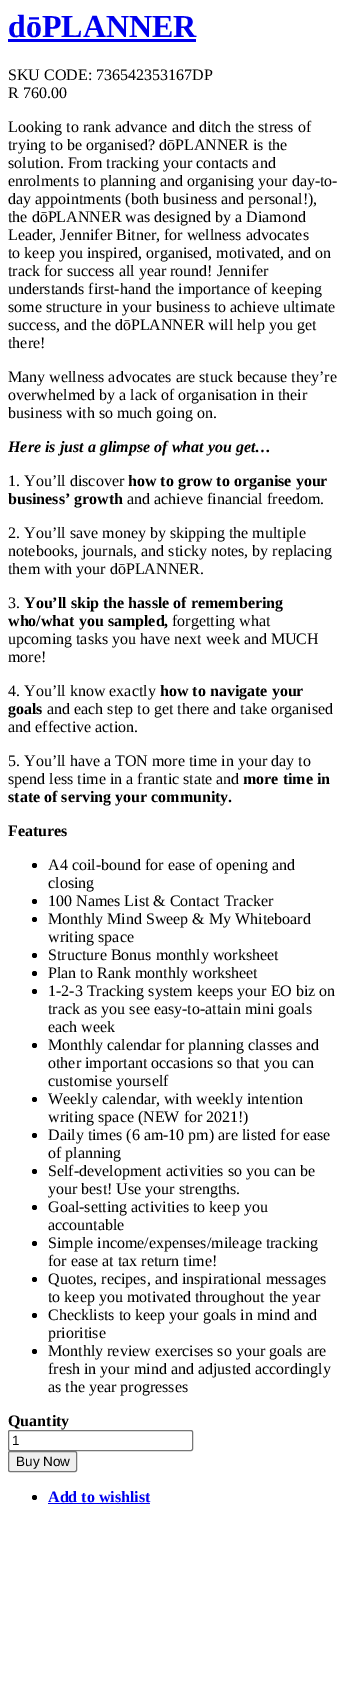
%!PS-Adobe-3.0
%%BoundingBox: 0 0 346 1705
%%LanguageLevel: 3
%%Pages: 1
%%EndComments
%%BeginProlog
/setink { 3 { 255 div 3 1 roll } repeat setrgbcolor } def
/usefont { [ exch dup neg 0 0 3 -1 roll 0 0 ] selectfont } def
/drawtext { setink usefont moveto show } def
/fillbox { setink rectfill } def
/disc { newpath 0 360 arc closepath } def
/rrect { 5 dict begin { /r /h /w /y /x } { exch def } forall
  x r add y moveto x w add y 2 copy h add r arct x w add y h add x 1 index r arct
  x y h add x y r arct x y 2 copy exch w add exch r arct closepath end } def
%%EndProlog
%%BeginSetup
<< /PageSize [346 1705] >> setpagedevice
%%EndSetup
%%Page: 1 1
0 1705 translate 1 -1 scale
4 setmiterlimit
0 0 346 1705 255 255 255 fillbox
(dōPLANNER) 8 37 /LiberationSerif-Bold 32 0 0 238 drawtext
8 39 188 3 0 0 238 fillbox
(SKU CODE: 736542353167DP) 8 80 /LiberationSerif-Regular 16 0 0 0 drawtext
(R 760.00) 8 98 /LiberationSerif-Regular 16 0 0 0 drawtext
(Looking to rank advance and ditch the stress of) 8 132 /LiberationSerif-Regular 16 0 0 0 drawtext
(trying to be organised? dōPLANNER is the) 8 150 /LiberationSerif-Regular 16 0 0 0 drawtext
(solution. From tracking your contacts and) 8 168 /LiberationSerif-Regular 16 0 0 0 drawtext
(enrolments to planning and organising your day-to-) 8 186 /LiberationSerif-Regular 16 0 0 0 drawtext
(day appointments \(both business and personal!\),) 8 204 /LiberationSerif-Regular 16 0 0 0 drawtext
(the dōPLANNER was designed by a Diamond) 8 222 /LiberationSerif-Regular 16 0 0 0 drawtext
(Leader, Jennifer Bitner, for wellness advocates) 8 240 /LiberationSerif-Regular 16 0 0 0 drawtext
(to keep you inspired, organised, motivated, and on) 8 258 /LiberationSerif-Regular 16 0 0 0 drawtext
(track for success all year round! Jennifer) 8 276 /LiberationSerif-Regular 16 0 0 0 drawtext
(understands first-hand the importance of keeping) 8 294 /LiberationSerif-Regular 16 0 0 0 drawtext
(some structure in your business to achieve ultimate) 8 312 /LiberationSerif-Regular 16 0 0 0 drawtext
(success, and the dōPLANNER will help you get) 8 330 /LiberationSerif-Regular 16 0 0 0 drawtext
(there!) 8 348 /LiberationSerif-Regular 16 0 0 0 drawtext
(Many wellness advocates are stuck because they’re) 8 382 /LiberationSerif-Regular 16 0 0 0 drawtext
(overwhelmed by a lack of organisation in their) 8 400 /LiberationSerif-Regular 16 0 0 0 drawtext
(business with so much going on.) 8 418 /LiberationSerif-Regular 16 0 0 0 drawtext
(Here is just a glimpse of what you get…) 8 452 /LiberationSerif-BoldItalic 16 0 0 0 drawtext
(1. You’ll discover) 8 486 /LiberationSerif-Regular 16 0 0 0 drawtext
(how to grow to organise your) 128 486 /LiberationSerif-Bold 16 0 0 0 drawtext
(business’ growth) 8 504 /LiberationSerif-Bold 16 0 0 0 drawtext
(and achieve financial freedom.) 127 504 /LiberationSerif-Regular 16 0 0 0 drawtext
(2. You’ll save money by skipping the multiple) 8 538 /LiberationSerif-Regular 16 0 0 0 drawtext
(notebooks, journals, and sticky notes, by replacing) 8 556 /LiberationSerif-Regular 16 0 0 0 drawtext
(them with your dōPLANNER.) 8 574 /LiberationSerif-Regular 16 0 0 0 drawtext
(3.) 8 608 /LiberationSerif-Regular 16 0 0 0 drawtext
(You’ll skip the hassle of remembering) 24 608 /LiberationSerif-Bold 16 0 0 0 drawtext
(who/what you sampled,) 8 626 /LiberationSerif-Bold 16 0 0 0 drawtext
(forgetting what) 172 626 /LiberationSerif-Regular 16 0 0 0 drawtext
(upcoming tasks you have next week and MUCH) 8 644 /LiberationSerif-Regular 16 0 0 0 drawtext
(more!) 8 662 /LiberationSerif-Regular 16 0 0 0 drawtext
(4. You’ll know exactly) 8 696 /LiberationSerif-Regular 16 0 0 0 drawtext
(how to navigate your) 160 696 /LiberationSerif-Bold 16 0 0 0 drawtext
(goals) 8 714 /LiberationSerif-Bold 16 0 0 0 drawtext
(and each step to get there and take organised) 47 714 /LiberationSerif-Regular 16 0 0 0 drawtext
(and effective action.) 8 732 /LiberationSerif-Regular 16 0 0 0 drawtext
(5. You’ll have a TON more time in your day to) 8 766 /LiberationSerif-Regular 16 0 0 0 drawtext
(spend less time in a frantic state and) 8 784 /LiberationSerif-Regular 16 0 0 0 drawtext
(more time in) 243 784 /LiberationSerif-Bold 16 0 0 0 drawtext
(state of serving your community.) 8 802 /LiberationSerif-Bold 16 0 0 0 drawtext
(Features) 8 836 /LiberationSerif-Bold 16 0 0 0 drawtext
34.5 865.5 2.5 disc fill
(A4 coil-bound for ease of opening and) 48 870 /LiberationSerif-Regular 16 0 0 0 drawtext
(closing) 48 888 /LiberationSerif-Regular 16 0 0 0 drawtext
34.5 901.5 2.5 disc fill
(100 Names List & Contact Tracker) 48 906 /LiberationSerif-Regular 16 0 0 0 drawtext
34.5 919.5 2.5 disc fill
(Monthly Mind Sweep & My Whiteboard) 48 924 /LiberationSerif-Regular 16 0 0 0 drawtext
(writing space) 48 942 /LiberationSerif-Regular 16 0 0 0 drawtext
34.5 955.5 2.5 disc fill
(Structure Bonus monthly worksheet) 48 960 /LiberationSerif-Regular 16 0 0 0 drawtext
34.5 973.5 2.5 disc fill
(Plan to Rank monthly worksheet) 48 978 /LiberationSerif-Regular 16 0 0 0 drawtext
34.5 991.5 2.5 disc fill
(1-2-3 Tracking system keeps your EO biz on) 48 996 /LiberationSerif-Regular 16 0 0 0 drawtext
(track as you see easy-to-attain mini goals) 48 1014 /LiberationSerif-Regular 16 0 0 0 drawtext
(each week) 48 1032 /LiberationSerif-Regular 16 0 0 0 drawtext
34.5 1045.5 2.5 disc fill
(Monthly calendar for planning classes and) 48 1050 /LiberationSerif-Regular 16 0 0 0 drawtext
(other important occasions so that you can) 48 1068 /LiberationSerif-Regular 16 0 0 0 drawtext
(customise yourself) 48 1086 /LiberationSerif-Regular 16 0 0 0 drawtext
34.5 1099.5 2.5 disc fill
(Weekly calendar, with weekly intention) 48 1104 /LiberationSerif-Regular 16 0 0 0 drawtext
(writing space \(NEW for 2021!\)) 48 1122 /LiberationSerif-Regular 16 0 0 0 drawtext
34.5 1135.5 2.5 disc fill
(Daily times \(6 am-10 pm\) are listed for ease) 48 1140 /LiberationSerif-Regular 16 0 0 0 drawtext
(of planning) 48 1158 /LiberationSerif-Regular 16 0 0 0 drawtext
34.5 1171.5 2.5 disc fill
(Self-development activities so you can be) 48 1176 /LiberationSerif-Regular 16 0 0 0 drawtext
(your best! Use your strengths.) 48 1194 /LiberationSerif-Regular 16 0 0 0 drawtext
34.5 1207.5 2.5 disc fill
(Goal-setting activities to keep you) 48 1212 /LiberationSerif-Regular 16 0 0 0 drawtext
(accountable) 48 1230 /LiberationSerif-Regular 16 0 0 0 drawtext
34.5 1243.5 2.5 disc fill
(Simple income/expenses/mileage tracking) 48 1248 /LiberationSerif-Regular 16 0 0 0 drawtext
(for ease at tax return time!) 48 1266 /LiberationSerif-Regular 16 0 0 0 drawtext
34.5 1279.5 2.5 disc fill
(Quotes, recipes, and inspirational messages) 48 1284 /LiberationSerif-Regular 16 0 0 0 drawtext
(to keep you motivated throughout the year) 48 1302 /LiberationSerif-Regular 16 0 0 0 drawtext
34.5 1315.5 2.5 disc fill
(Checklists to keep your goals in mind and) 48 1320 /LiberationSerif-Regular 16 0 0 0 drawtext
(prioritise) 48 1338 /LiberationSerif-Regular 16 0 0 0 drawtext
34.5 1351.5 2.5 disc fill
(Monthly review exercises so your goals are) 48 1356 /LiberationSerif-Regular 16 0 0 0 drawtext
(fresh in your mind and adjusted accordingly) 48 1374 /LiberationSerif-Regular 16 0 0 0 drawtext
(as the year progresses) 48 1392 /LiberationSerif-Regular 16 0 0 0 drawtext
(Quantity) 8 1426 /LiberationSerif-Bold 16 0 0 0 drawtext
118 118 118 setink
8.5 1430.5 184 20 1.5 rrect stroke
(1) 12 1445 /LiberationSans-Regular 13.5 0 0 0 drawtext
239 239 239 setink
8.5 1451.5 68 20 1.5 rrect gsave fill grestore
118 118 118 setink
stroke
(Buy Now) 16 1466 /LiberationSans-Regular 13.5 0 0 0 drawtext
34.5 1497.5 2.5 disc fill
(Add to wishlist) 48 1502 /LiberationSerif-Bold 16 0 0 238 drawtext
48 1503 102 1 0 0 238 fillbox
showpage
%%EOF
